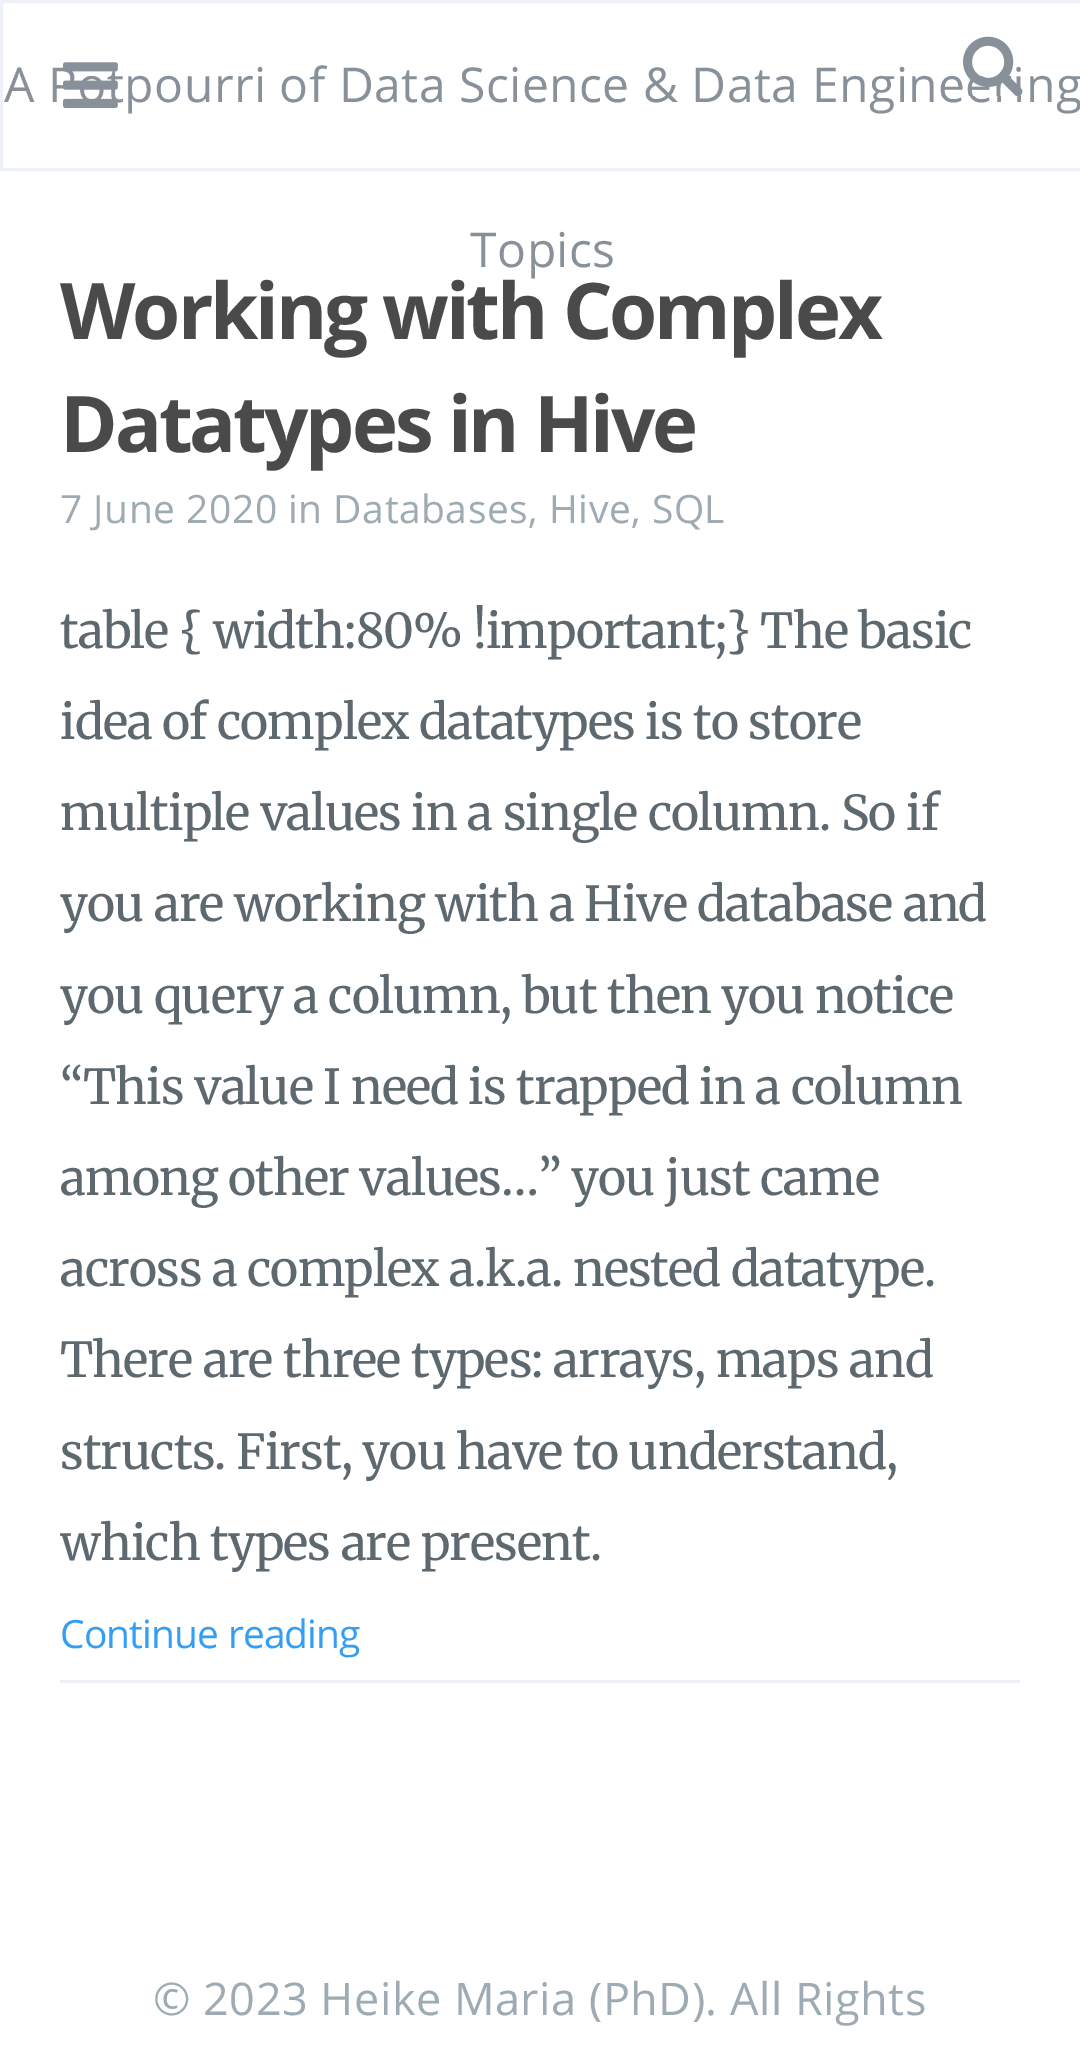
%!PS-Adobe-3.0
%%BoundingBox: 0 0 1080 2051
%%LanguageLevel: 3
%%Pages: 1
%%EndComments
%%BeginProlog
/setink { 3 { 255 div 3 1 roll } repeat setrgbcolor } def
/usefont { [ exch dup neg 0 0 3 -1 roll 0 0 ] selectfont } def
/fillbox { setink rectfill } def
/drawimage { 5 dict begin { /h /w /y /x /name } { exch def } forall
  gsave x y translate w h scale
  w h 8 [w 0 0 h 0 0] name (r) file false 3 colorimage grestore end } def
%%EndProlog
%%BeginSetup
<< /PageSize [1080 2051] >> setpagedevice
%%EndSetup
%%Page: 1 1
0 2051 translate 1 -1 scale
4 setmiterlimit
0 0 1080 2051 255 255 255 fillbox
238 242 248 setink
3 setlinewidth
1.5 1.5 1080 168 rectstroke
/OpenSans-Regular 48 usefont
136 144 154 setink
4 102 moveto 0.5 0 (A Potpourri of Data Science & Data Engineering) ashow
(assets/img1.rgb) 63 62 55 46 drawimage
(assets/img2.rgb) 963 36 60 60 drawimage
470 267 moveto 0.5 0 (Topics) ashow
60 1680 960 3 238 242 248 fillbox
/OpenSans-Bold 78 usefont
74 74 74 setink
60 339 moveto -3.1 0 (Working with Complex) ashow
60 452 moveto -3.1 0 (Datatypes in Hive) ashow
/OpenSans-Regular 39 usefont
158 171 179 setink
60 523 moveto 0.5 0 (7 June 2020 in Databases, Hive, SQL) ashow
/Merriweather-Regular 48 usefont
93 104 111 setink
60 648 moveto -0.9 0 (table { width:80% !important;} The basic) ashow
60 739 moveto -0.9 0 (idea of complex datatypes is to store) ashow
60 830 moveto -0.9 0 (multiple values in a single column. So if) ashow
60 921 moveto -0.9 0 (you are working with a Hive database and) ashow
60 1013 moveto -0.9 0 (you query a column, but then you notice) ashow
60 1104 moveto -0.9 0 (“This value I need is trapped in a column) ashow
60 1195 moveto -0.9 0 (among other values…” you just came) ashow
60 1286 moveto -0.9 0 (across a complex a.k.a. nested datatype.) ashow
60 1377 moveto -0.9 0 (There are three types: arrays, maps and) ashow
60 1469 moveto -0.9 0 (structs. First, you have to understand,) ashow
gsave
60 585 960 1095 rectclip
60 1560 moveto -0.9 0 (which types are present.) ashow
grestore
/OpenSans-Regular 39 usefont
52 158 243 setink
60 1648 moveto -0.9 0 (Continue reading) ashow
/OpenSans-Regular 45 usefont
158 171 179 setink
153 2015 moveto 0.5 0 (© 2023 Heike Maria \(PhD\). All Rights) ashow
showpage
%%EOF
